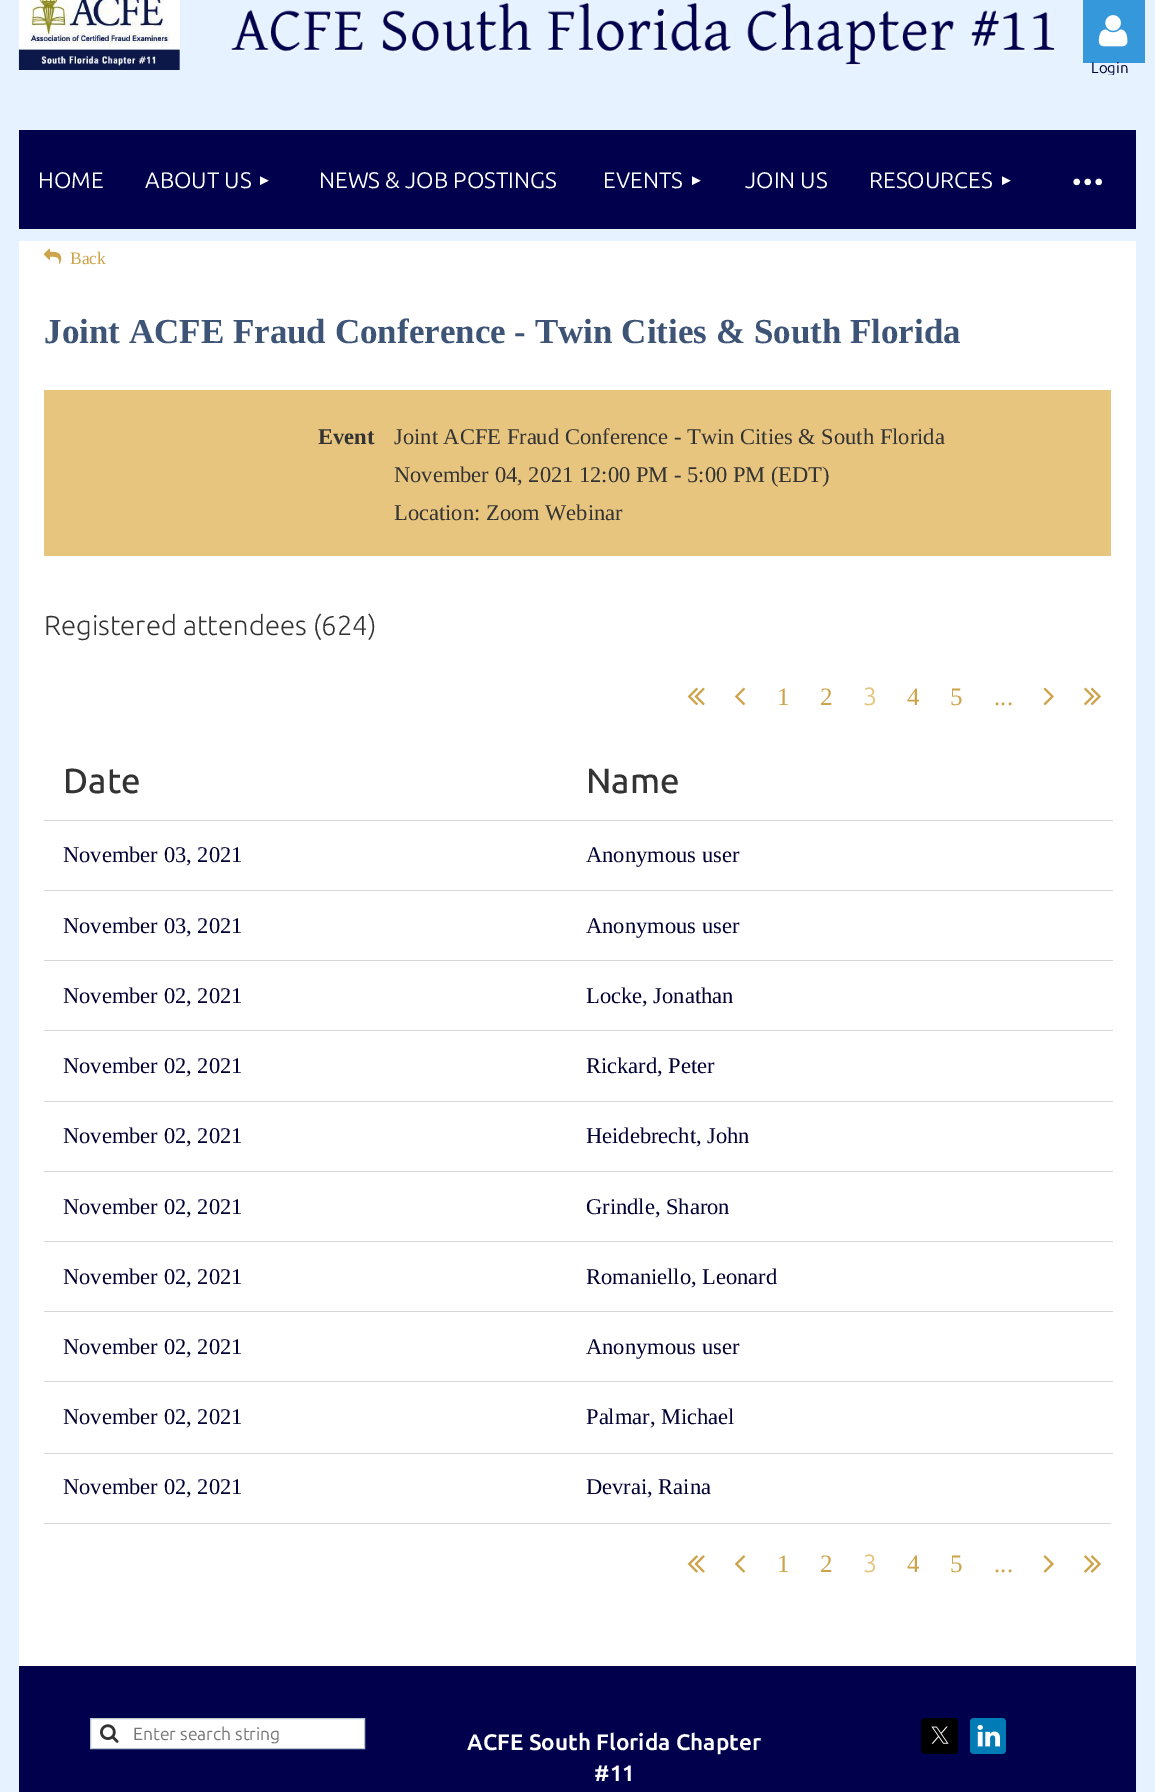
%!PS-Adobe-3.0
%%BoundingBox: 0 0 1155 1792
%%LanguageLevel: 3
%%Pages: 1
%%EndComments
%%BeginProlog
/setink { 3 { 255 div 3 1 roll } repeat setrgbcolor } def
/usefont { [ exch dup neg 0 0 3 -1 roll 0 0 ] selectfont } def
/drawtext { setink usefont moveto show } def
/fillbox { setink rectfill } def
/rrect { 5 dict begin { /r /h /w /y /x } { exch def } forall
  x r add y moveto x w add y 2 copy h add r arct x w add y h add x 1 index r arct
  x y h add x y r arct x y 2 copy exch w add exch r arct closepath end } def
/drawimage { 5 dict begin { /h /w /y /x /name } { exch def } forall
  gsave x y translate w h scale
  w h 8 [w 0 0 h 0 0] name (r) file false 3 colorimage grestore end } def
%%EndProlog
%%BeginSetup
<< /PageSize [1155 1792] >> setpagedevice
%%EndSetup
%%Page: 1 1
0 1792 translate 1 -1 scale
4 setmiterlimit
0 0 1155 1792 230 242 255 fillbox
(assets/img1.rgb) 18 0 162 70 drawimage
(assets/img2.rgb) 231 3 825 63 drawimage
1083 0 62 63 52 152 219 fillbox
(assets/img3.rgb) 1098 15 30 32 drawimage
gsave
1083 50 53 25 rectclip
(Login) 1091 73 /Ubuntu-Regular 15 0 0 51 drawtext
grestore
19 130 1117 99 0 0 77 fillbox
(HOME) 38 188 /Ubuntu-Regular 22.5 255 255 255 drawtext
(ABOUT US) 145 188 /Ubuntu-Regular 22.5 255 255 255 drawtext
(►) 257 185 /LiberationSans-Regular 15 255 255 255 drawtext
(NEWS & JOB POSTINGS) 319 188 /Ubuntu-Regular 22.5 255 255 255 drawtext
(EVENTS) 603 188 /Ubuntu-Regular 22.5 255 255 255 drawtext
(►) 689 185 /LiberationSans-Regular 15 255 255 255 drawtext
(JOIN US) 745 188 /Ubuntu-Regular 22.5 255 255 255 drawtext
(RESOURCES) 869 188 /Ubuntu-Regular 22.5 255 255 255 drawtext
(►) 999 185 /LiberationSans-Regular 15 255 255 255 drawtext
/Ubuntu-Regular 55 usefont
1070 198 moveto -2.5 0 (···) ashow
19 241 1117 1425 255 255 255 fillbox
(assets/img4.rgb) 43 248 19 17 drawimage
(Back) 70 264 /LiberationSerif-Regular 17.5 205 164 75 drawtext
(Joint ACFE Fraud Conference - Twin Cities & South Florida) 44 343 /LiberationSerif-Bold 35 61 84 118 drawtext
44 390 1067 166 231 197 127 fillbox
(Event) 318 444 /LiberationSerif-Bold 22.5 51 51 51 drawtext
(Joint ACFE Fraud Conference - Twin Cities & South Florida) 394 444 /LiberationSerif-Regular 22.5 51 51 51 drawtext
(November 04, 2021 12:00 PM - 5:00 PM \(EDT\)) 394 482 /LiberationSerif-Regular 22.5 51 51 51 drawtext
(Location: Zoom Webinar) 394 520 /LiberationSerif-Regular 22.5 51 51 51 drawtext
(Registered attendees \(624\)) 44 635 /Ubuntu-Light 27.5 51 51 51 drawtext
(assets/img5.rgb) 687 687 18 19 drawimage
(assets/img6.rgb) 734 687 12 19 drawimage
(1) 777 705 /LiberationSerif-Regular 25 205 164 75 drawtext
(2) 820 705 /LiberationSerif-Regular 25 205 164 75 drawtext
(3) 863 705 /Ubuntu-Regular 25 231 197 127 drawtext
(4) 907 705 /LiberationSerif-Regular 25 205 164 75 drawtext
(5) 950 705 /LiberationSerif-Regular 25 205 164 75 drawtext
(...) 994 705 /LiberationSerif-Regular 25 205 164 75 drawtext
(assets/img7.rgb) 1043 687 11 19 drawimage
(assets/img8.rgb) 1084 687 17 19 drawimage
44 1523 1067 1 214 214 214 fillbox
(Date) 63 793 /Ubuntu-Medium 35 51 51 51 drawtext
(Name) 586 793 /Ubuntu-Medium 35 51 51 51 drawtext
(November 03, 2021) 63 862 /LiberationSerif-Regular 22.5 0 0 51 drawtext
44 820 1069 1 214 214 214 fillbox
(Anonymous user) 586 862 /LiberationSerif-Regular 22.5 0 0 51 drawtext
(November 03, 2021) 63 933 /LiberationSerif-Regular 22.5 0 0 51 drawtext
44 890 1069 1 214 214 214 fillbox
(Anonymous user) 586 933 /LiberationSerif-Regular 22.5 0 0 51 drawtext
(November 02, 2021) 63 1003 /LiberationSerif-Regular 22.5 0 0 51 drawtext
44 960 1069 1 214 214 214 fillbox
(Locke, Jonathan) 586 1003 /LiberationSerif-Regular 22.5 0 0 51 drawtext
(November 02, 2021) 63 1073 /LiberationSerif-Regular 22.5 0 0 51 drawtext
44 1030 1069 1 214 214 214 fillbox
(Rickard, Peter) 586 1073 /LiberationSerif-Regular 22.5 0 0 51 drawtext
(November 02, 2021) 63 1143 /LiberationSerif-Regular 22.5 0 0 51 drawtext
44 1101 1069 1 214 214 214 fillbox
(Heidebrecht, John) 586 1143 /LiberationSerif-Regular 22.5 0 0 51 drawtext
(November 02, 2021) 63 1214 /LiberationSerif-Regular 22.5 0 0 51 drawtext
44 1171 1069 1 214 214 214 fillbox
(Grindle, Sharon) 586 1214 /LiberationSerif-Regular 22.5 0 0 51 drawtext
(November 02, 2021) 63 1284 /LiberationSerif-Regular 22.5 0 0 51 drawtext
44 1241 1069 1 214 214 214 fillbox
(Romaniello, Leonard) 586 1284 /LiberationSerif-Regular 22.5 0 0 51 drawtext
(November 02, 2021) 63 1354 /LiberationSerif-Regular 22.5 0 0 51 drawtext
44 1311 1069 1 214 214 214 fillbox
(Anonymous user) 586 1354 /LiberationSerif-Regular 22.5 0 0 51 drawtext
(November 02, 2021) 63 1424 /LiberationSerif-Regular 22.5 0 0 51 drawtext
44 1381 1069 1 214 214 214 fillbox
(Palmar, Michael) 586 1424 /LiberationSerif-Regular 22.5 0 0 51 drawtext
(November 02, 2021) 63 1494 /LiberationSerif-Regular 22.5 0 0 51 drawtext
44 1453 1069 1 214 214 214 fillbox
(Devrai, Raina) 586 1494 /LiberationSerif-Regular 22.5 0 0 51 drawtext
(assets/img9.rgb) 687 1555 18 18 drawimage
(assets/img10.rgb) 734 1555 12 18 drawimage
(1) 777 1572 /LiberationSerif-Regular 25 205 164 75 drawtext
(2) 820 1572 /LiberationSerif-Regular 25 205 164 75 drawtext
(3) 863 1572 /Ubuntu-Regular 25 231 197 127 drawtext
(4) 907 1572 /LiberationSerif-Regular 25 205 164 75 drawtext
(5) 950 1572 /LiberationSerif-Regular 25 205 164 75 drawtext
(...) 994 1572 /LiberationSerif-Regular 25 205 164 75 drawtext
(assets/img11.rgb) 1043 1555 11 18 drawimage
(assets/img12.rgb) 1084 1555 17 18 drawimage
19 1666 1117 126 0 0 77 fillbox
255 255 255 setink
90.5 1718.5 moveto 364.5 1718.5 lineto 364.5 1748.5 lineto 90.5 1748.5 lineto closepath gsave fill grestore
184 198 205 setink
stroke
(assets/img13.rgb) 100 1724 19 19 drawimage
(Enter search string) 133 1740 /Ubuntu-Regular 17.5 117 117 117 drawtext
(ACFE South Florida Chapter) 467 1750 /Ubuntu-Bold 22.5 255 255 255 drawtext
(#11) 594 1781 /Ubuntu-Bold 22.5 255 255 255 drawtext
0 0 0 setink
921 1718 37 36 4 rrect fill
(assets/img14.rgb) 931 1726 18 18 drawimage
0 123 182 setink
970 1718 36 36 4 rrect fill
(assets/img15.rgb) 977 1724 23 23 drawimage
showpage
%%EOF
